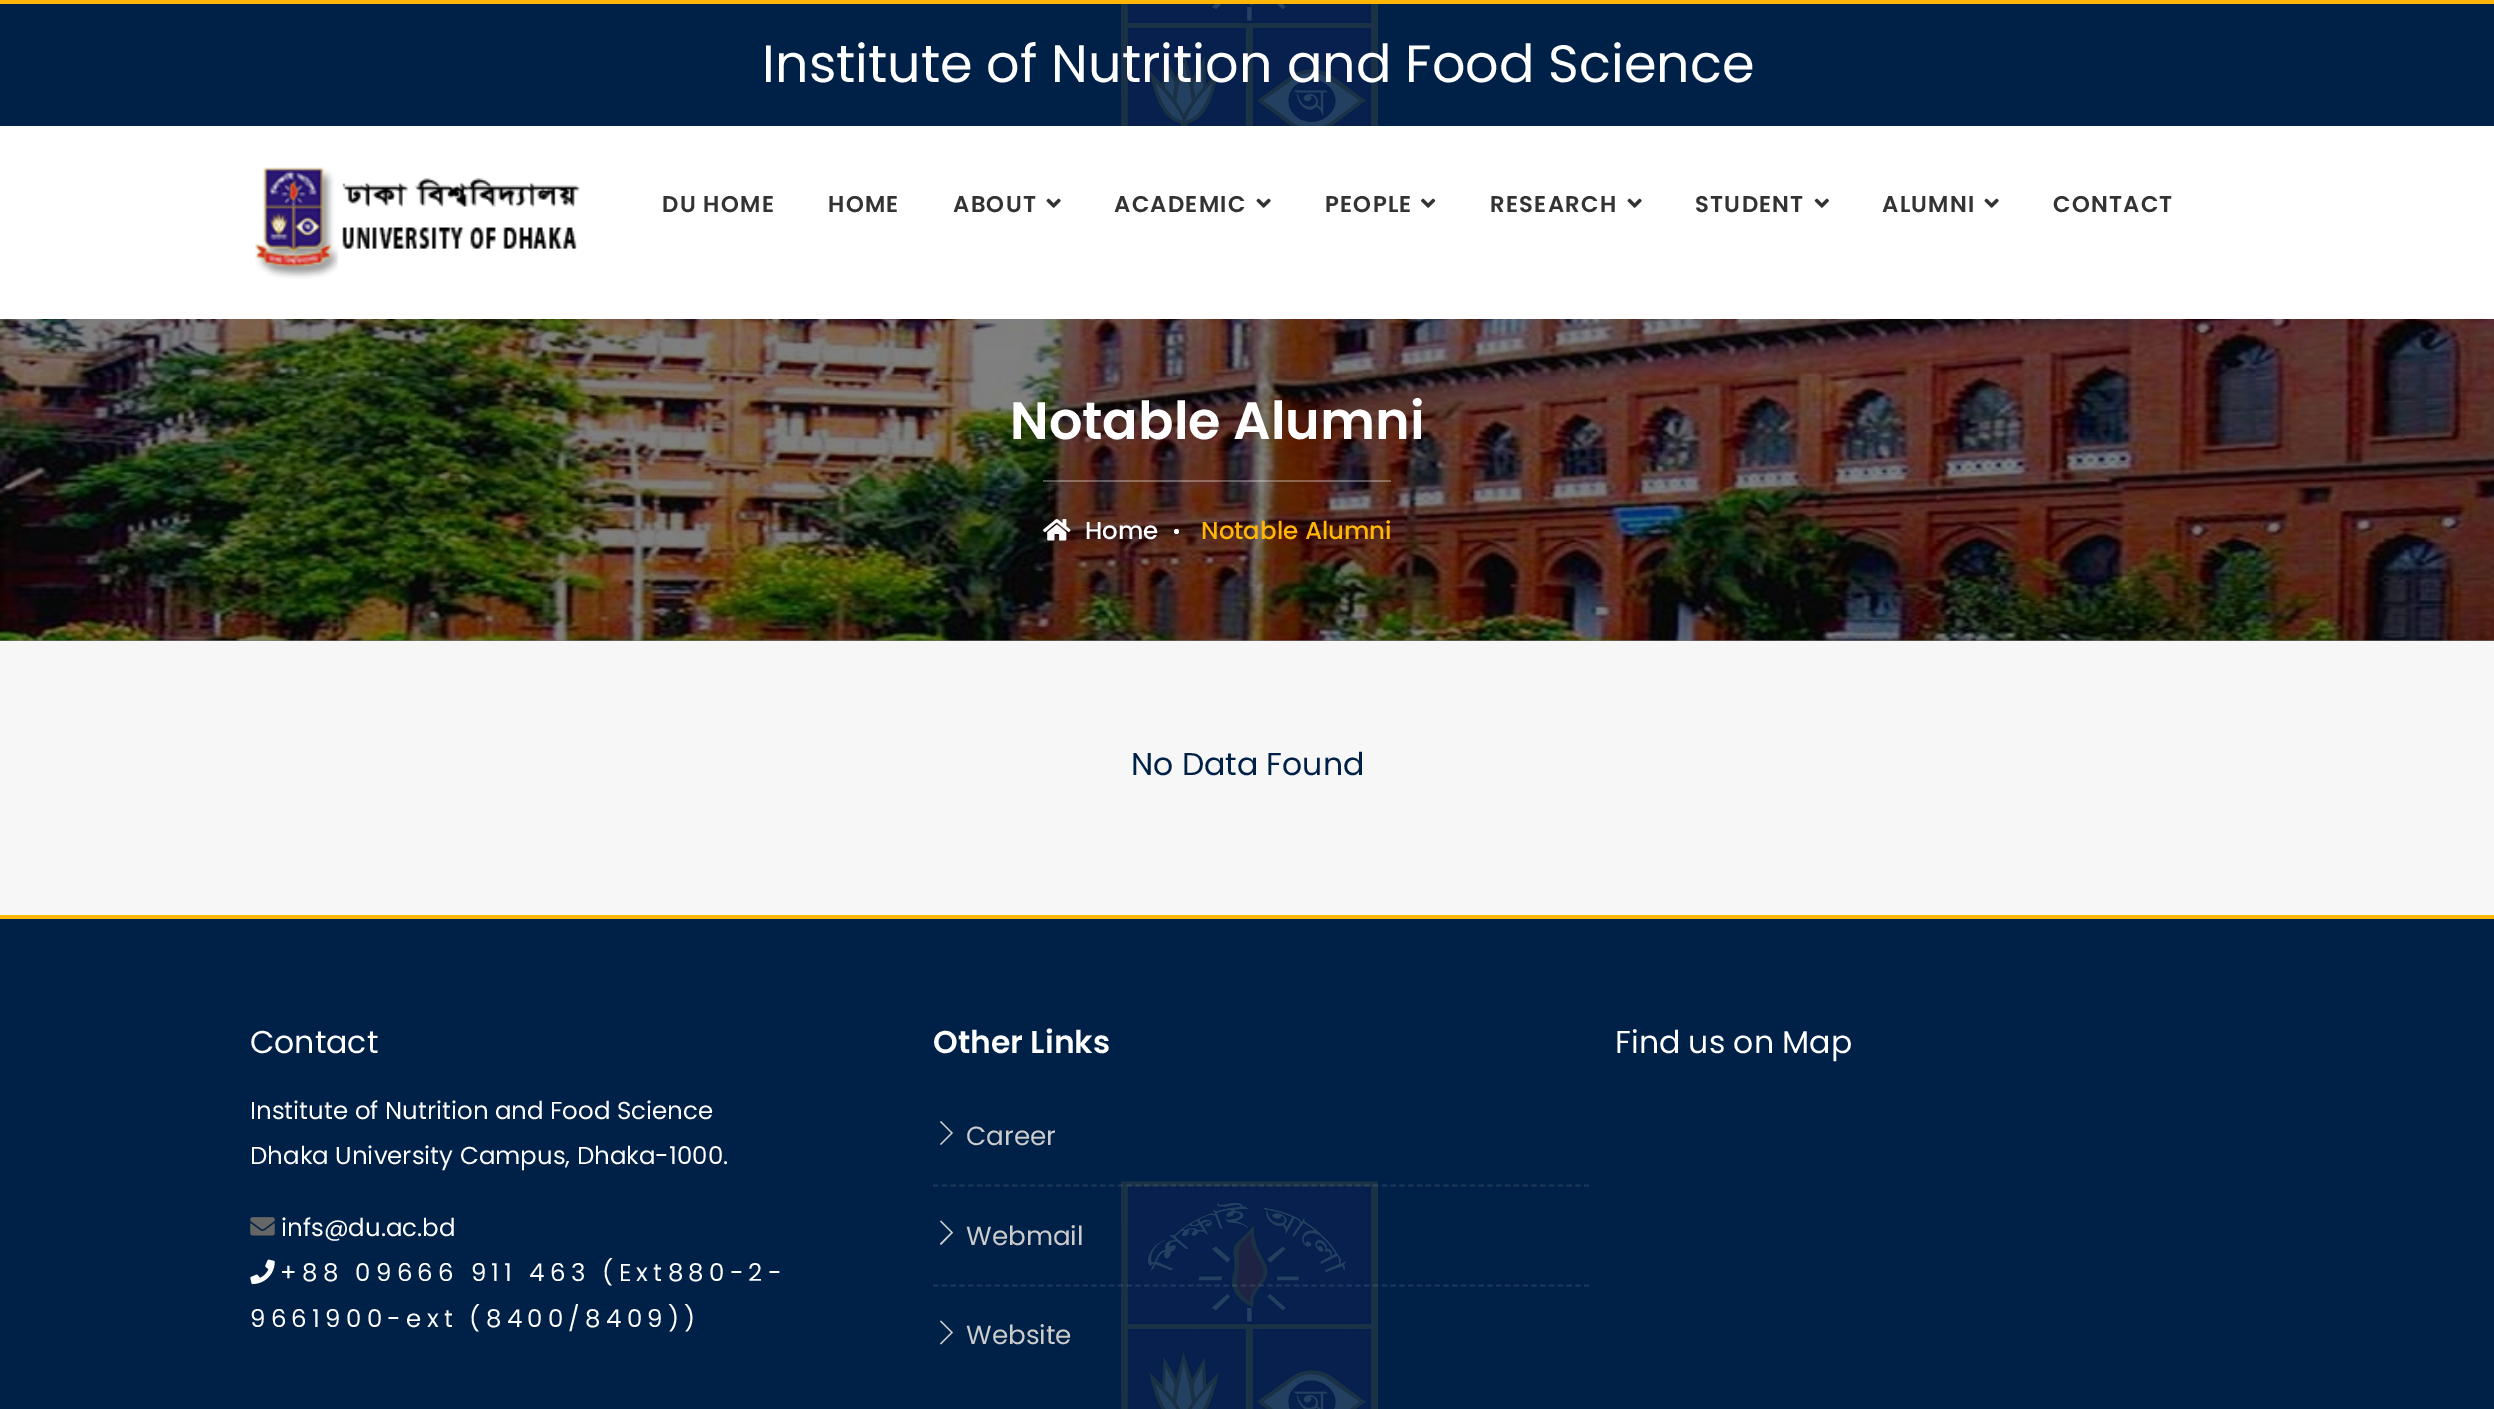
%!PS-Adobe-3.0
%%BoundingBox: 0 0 2494 1409
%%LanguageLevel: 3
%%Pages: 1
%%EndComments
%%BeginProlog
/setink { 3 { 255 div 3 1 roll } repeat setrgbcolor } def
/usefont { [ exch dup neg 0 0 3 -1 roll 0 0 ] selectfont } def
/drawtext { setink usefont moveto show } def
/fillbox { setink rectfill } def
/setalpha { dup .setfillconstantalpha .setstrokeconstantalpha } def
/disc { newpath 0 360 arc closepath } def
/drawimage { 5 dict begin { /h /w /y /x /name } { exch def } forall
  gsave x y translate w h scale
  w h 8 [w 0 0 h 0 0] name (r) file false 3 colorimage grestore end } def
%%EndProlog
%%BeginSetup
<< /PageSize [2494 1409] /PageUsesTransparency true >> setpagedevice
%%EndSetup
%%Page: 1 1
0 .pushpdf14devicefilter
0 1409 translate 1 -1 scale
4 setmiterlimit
0 0 2494 1409 128 128 128 fillbox
0 4 2494 122 0 33 71 fillbox
(assets/img1.rgb) 1121 4 257 122 drawimage
0 0 2494 4 255 182 6 fillbox
(Institute of Nutrition and Food Science) 762 82 /Poppins-Regular 52.5 255 255 255 drawtext
0 126 2494 193 255 255 255 fillbox
(assets/img2.rgb) 255 167 325 112 drawimage
/Poppins-SemiBold 22.75 usefont
51 51 51 setink
662 212 moveto 1.25 0 (DU HOME) ashow
828 212 moveto 1.25 0 (HOME) ashow
953 212 moveto 1.25 0 (ABOUT) ashow
(assets/img3.rgb) 1046 198 15 10 drawimage
1114 212 moveto 1.25 0 (ACADEMIC) ashow
(assets/img3.rgb) 1256 198 15 10 drawimage
1325 212 moveto 1.25 0 (PEOPLE) ashow
(assets/img4.rgb) 1421 198 15 10 drawimage
1490 212 moveto 1.25 0 (RESEARCH) ashow
(assets/img3.rgb) 1627 198 15 10 drawimage
1695 212 moveto 1.25 0 (STUDENT) ashow
(assets/img5.rgb) 1814 198 15 10 drawimage
1882 212 moveto 1.25 0 (ALUMNI) ashow
(assets/img3.rgb) 1984 198 15 10 drawimage
2053 212 moveto 1.25 0 (CONTACT) ashow
(assets/img6.rgb) 0 319 2494 322 drawimage
(Notable Alumni) 1010 439 /Poppins-SemiBold 52.5 255 255 255 drawtext
0.3 setalpha
1043 480 348 2 255 255 255 fillbox
1 setalpha
(assets/img7.rgb) 1043 519 28 22 drawimage
(Home) 1085 539 /Poppins-Medium 24.5 255 255 255 drawtext
1176.5 531.5 2.5 disc fill
(Notable Alumni) 1201 539 /Poppins-Medium 24.5 255 182 6 drawtext
0 641 2494 274 247 247 247 fillbox
(No Data Found) 1131 775 /Poppins-Regular 31.5 0 33 71 drawtext
0 919 2494 490 0 33 71 fillbox
(assets/img8.rgb) 1121 1181 257 228 drawimage
0 915 2494 4 255 182 6 fillbox
(Contact) 250 1053 /Poppins-Regular 31.5 255 255 255 drawtext
(Institute of Nutrition and Food Science) 250 1119 /Poppins-Regular 24.5 255 255 255 drawtext
(Dhaka University Campus, Dhaka-1000.) 250 1164 /Poppins-Regular 24.5 255 255 255 drawtext
(assets/img9.rgb) 250 1217 25 19 drawimage
(infs@du.ac.bd) 281 1236 /Poppins-Regular 24.5 255 255 255 drawtext
(assets/img10.rgb) 250 1259 25 26 drawimage
280 1281 moveto 5.25 0 (+88 09666 911 463 \(Ext880-2-) ashow
250 1327 moveto 5.25 0 (9661900-ext \(8400/8409\)\)) ashow
(Other Links) 933 1053 /Poppins-SemiBold 31.5 255 255 255 drawtext
0.1 setalpha
1.8 setlinewidth
[5.25 3.55] 0 setdash
933 1185.5 moveto 1589 1185.5 lineto stroke
1 setalpha
204 204 204 setink
953 1133 moveto 941 1145 lineto 940 1144 lineto 951 1133 lineto 940 1122 lineto 941 1121 lineto closepath fill
(Career) 966 1145 /Poppins-Regular 26.25 204 204 204 drawtext
0.1 setalpha
255 255 255 setink
933 1285.5 moveto 1589 1285.5 lineto stroke
1 setalpha
204 204 204 setink
953 1232.5 moveto 941 1245 lineto 940 1243.5 lineto 951 1232.5 lineto 940 1221.5 lineto 941 1220.5 lineto closepath fill
(Webmail) 966 1245 /Poppins-Regular 26.25 204 204 204 drawtext
953 1332.5 moveto 941 1344.5 lineto 940 1343.5 lineto 951 1332.5 lineto 940 1321.5 lineto 941 1320.5 lineto closepath fill
(Website) 966 1344 /Poppins-Regular 26.25 204 204 204 drawtext
(Find us on Map) 1615 1053 /Poppins-Regular 31.5 255 255 255 drawtext
.poppdf14devicefilter showpage
%%EOF
